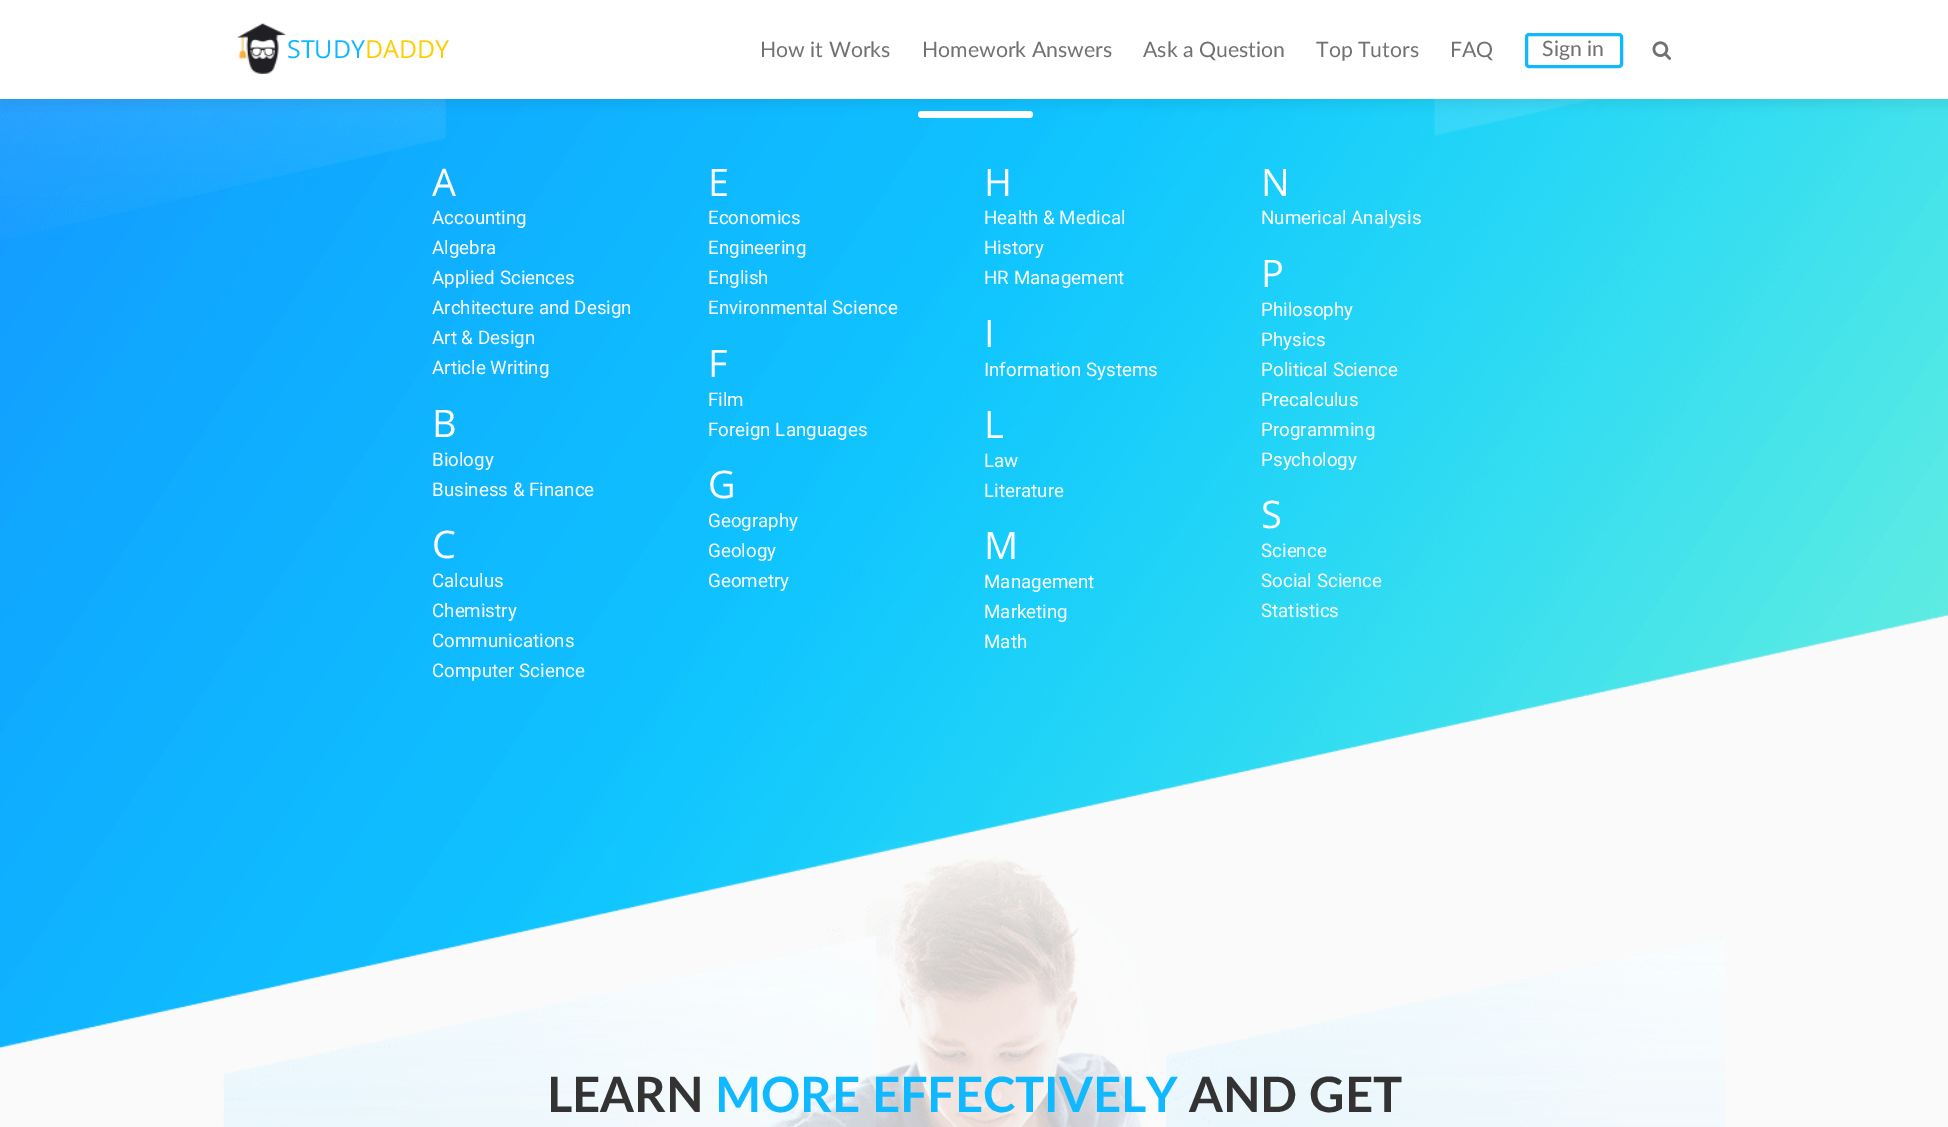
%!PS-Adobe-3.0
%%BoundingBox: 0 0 1948 1127
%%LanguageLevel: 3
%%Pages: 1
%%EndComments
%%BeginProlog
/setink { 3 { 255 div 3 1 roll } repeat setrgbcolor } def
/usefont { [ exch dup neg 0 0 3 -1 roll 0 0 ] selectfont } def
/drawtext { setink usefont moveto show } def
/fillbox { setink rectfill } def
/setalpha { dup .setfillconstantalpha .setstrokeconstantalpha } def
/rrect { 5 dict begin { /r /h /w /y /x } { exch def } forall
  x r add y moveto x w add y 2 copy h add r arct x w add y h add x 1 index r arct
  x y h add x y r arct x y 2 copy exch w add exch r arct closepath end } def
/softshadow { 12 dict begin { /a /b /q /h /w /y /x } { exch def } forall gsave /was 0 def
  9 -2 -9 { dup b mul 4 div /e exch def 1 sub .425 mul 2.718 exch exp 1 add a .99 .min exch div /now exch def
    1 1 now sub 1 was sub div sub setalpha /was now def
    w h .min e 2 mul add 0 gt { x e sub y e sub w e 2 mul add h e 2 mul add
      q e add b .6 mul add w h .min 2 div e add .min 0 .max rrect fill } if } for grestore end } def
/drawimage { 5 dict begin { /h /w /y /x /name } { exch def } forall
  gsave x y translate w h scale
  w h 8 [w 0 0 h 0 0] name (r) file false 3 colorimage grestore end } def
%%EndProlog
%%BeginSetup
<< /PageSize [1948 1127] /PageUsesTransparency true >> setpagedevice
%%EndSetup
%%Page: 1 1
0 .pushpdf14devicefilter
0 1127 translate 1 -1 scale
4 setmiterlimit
0 0 1948 1127 250 250 250 fillbox
(assets/img3.rgb) 0 99 1948 950 drawimage
255 255 255 setink
918 111 115 7 3.5 rrect fill
0 0 0 setink
0 8 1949 98 0 4.5 0.05 softshadow
0 0 1948 99 255 255 255 fillbox
(assets/img1.rgb) 237 23 50 52 drawimage
(STUDY) 287 58 /OpenSans-Regular 25 15 184 255 drawtext
(DADDY) 365 58 /OpenSans-Regular 25 255 204 0 drawtext
(How it Works) 760 57 /Lato-Regular 21.25 113 113 113 drawtext
(Homework Answers) 922 57 /Lato-Regular 21.25 113 113 113 drawtext
(Ask a Question) 1143 57 /Lato-Regular 21.25 113 113 113 drawtext
(Top Tutors) 1316 57 /Lato-Regular 21.25 113 113 113 drawtext
(FAQ) 1450 57 /Lato-Regular 21.25 113 113 113 drawtext
15 184 255 setink
3 setlinewidth
1526.5 34.5 95 32 2.5 rrect stroke
(Sign in) 1542 56 /Lato-Regular 21.25 113 113 113 drawtext
(assets/img2.rgb) 1652 41 19 19 drawimage
(A) 432 196 /OpenSans-Regular 38 255 255 255 drawtext
(Accounting) 432 224 /Roboto-Regular 18.75 255 255 255 drawtext
(Algebra) 432 254 /Roboto-Regular 18.75 255 255 255 drawtext
(Applied Sciences) 432 284 /Roboto-Regular 18.75 255 255 255 drawtext
(Architecture and Design) 432 314 /Roboto-Regular 18.75 255 255 255 drawtext
(Art & Design) 432 344 /Roboto-Regular 18.75 255 255 255 drawtext
(Article Writing) 432 374 /Roboto-Regular 18.75 255 255 255 drawtext
(E) 708 196 /OpenSans-Regular 38 255 255 255 drawtext
(Economics) 708 224 /Roboto-Regular 18.75 255 255 255 drawtext
(Engineering) 708 254 /Roboto-Regular 18.75 255 255 255 drawtext
(English) 708 284 /Roboto-Regular 18.75 255 255 255 drawtext
(Environmental Science) 708 314 /Roboto-Regular 18.75 255 255 255 drawtext
(H) 984 196 /OpenSans-Regular 38 255 255 255 drawtext
(Health & Medical) 984 224 /Roboto-Regular 18.75 255 255 255 drawtext
(History) 984 254 /Roboto-Regular 18.75 255 255 255 drawtext
(HR Management) 984 284 /Roboto-Regular 18.75 255 255 255 drawtext
(N) 1261 196 /OpenSans-Regular 38 255 255 255 drawtext
(Numerical Analysis) 1261 224 /Roboto-Regular 18.75 255 255 255 drawtext
(F) 708 377 /OpenSans-Regular 38 255 255 255 drawtext
(Film) 708 406 /Roboto-Regular 18.75 255 255 255 drawtext
(Foreign Languages) 708 436 /Roboto-Regular 18.75 255 255 255 drawtext
(I) 984 347 /OpenSans-Regular 38 255 255 255 drawtext
(Information Systems) 984 376 /Roboto-Regular 18.75 255 255 255 drawtext
(P) 1261 287 /OpenSans-Regular 38 255 255 255 drawtext
(Philosophy) 1261 316 /Roboto-Regular 18.75 255 255 255 drawtext
(Physics) 1261 346 /Roboto-Regular 18.75 255 255 255 drawtext
(Political Science) 1261 376 /Roboto-Regular 18.75 255 255 255 drawtext
(Precalculus) 1261 406 /Roboto-Regular 18.75 255 255 255 drawtext
(Programming) 1261 436 /Roboto-Regular 18.75 255 255 255 drawtext
(Psychology) 1261 466 /Roboto-Regular 18.75 255 255 255 drawtext
(B) 432 437 /OpenSans-Regular 38 255 255 255 drawtext
(Biology) 432 466 /Roboto-Regular 18.75 255 255 255 drawtext
(Business & Finance) 432 496 /Roboto-Regular 18.75 255 255 255 drawtext
(L) 984 438 /OpenSans-Regular 38 255 255 255 drawtext
(Law) 984 467 /Roboto-Regular 18.75 255 255 255 drawtext
(Literature) 984 497 /Roboto-Regular 18.75 255 255 255 drawtext
(C) 432 558 /OpenSans-Regular 38 255 255 255 drawtext
(Calculus) 432 587 /Roboto-Regular 18.75 255 255 255 drawtext
(Chemistry) 432 617 /Roboto-Regular 18.75 255 255 255 drawtext
(Communications) 432 647 /Roboto-Regular 18.75 255 255 255 drawtext
(Computer Science) 432 677 /Roboto-Regular 18.75 255 255 255 drawtext
(G) 708 498 /OpenSans-Regular 38 255 255 255 drawtext
(Geography) 708 527 /Roboto-Regular 18.75 255 255 255 drawtext
(Geology) 708 557 /Roboto-Regular 18.75 255 255 255 drawtext
(Geometry) 708 587 /Roboto-Regular 18.75 255 255 255 drawtext
(M) 984 559 /OpenSans-Regular 38 255 255 255 drawtext
(Management) 984 588 /Roboto-Regular 18.75 255 255 255 drawtext
(Marketing) 984 618 /Roboto-Regular 18.75 255 255 255 drawtext
(Math) 984 648 /Roboto-Regular 18.75 255 255 255 drawtext
(S) 1261 528 /OpenSans-Regular 38 255 255 255 drawtext
(Science) 1261 557 /Roboto-Regular 18.75 255 255 255 drawtext
(Social Science) 1261 587 /Roboto-Regular 18.75 255 255 255 drawtext
(Statistics) 1261 617 /Roboto-Regular 18.75 255 255 255 drawtext
(assets/img4.rgb) 223 841 1502 286 drawimage
(LEARN) 547 1112 /Lato-Bold 48.75 51 51 51 drawtext
(MORE EFFECTIVELY) 715 1112 /Lato-Bold 48.75 15 184 255 drawtext
(AND GET) 1189 1112 /Lato-Bold 48.75 51 51 51 drawtext
.poppdf14devicefilter showpage
%%EOF
